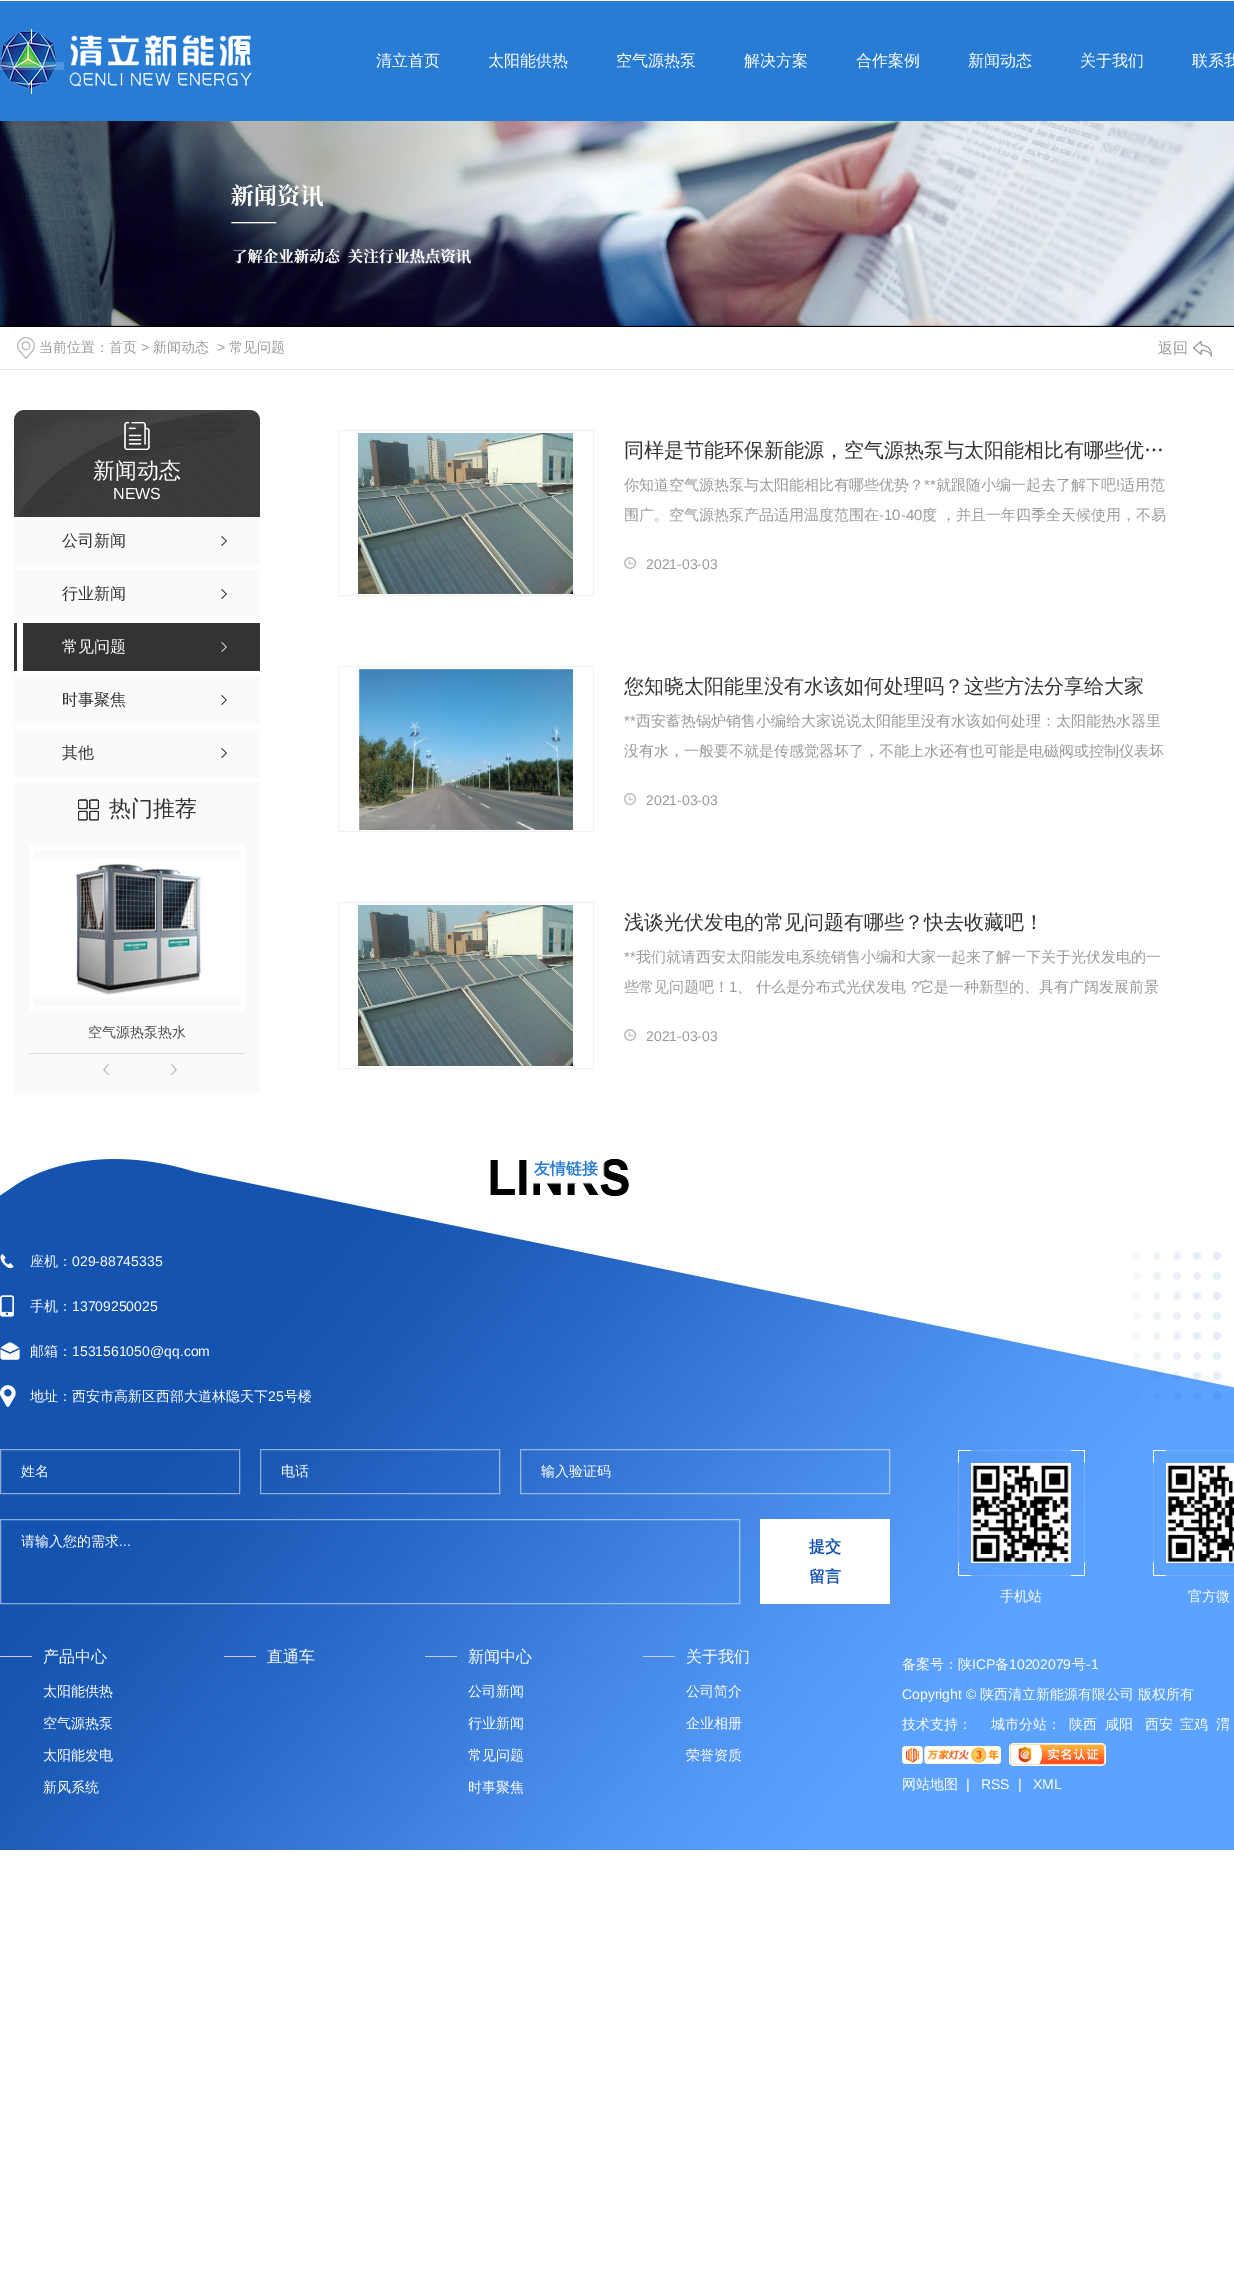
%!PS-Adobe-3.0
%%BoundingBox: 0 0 1234 2274
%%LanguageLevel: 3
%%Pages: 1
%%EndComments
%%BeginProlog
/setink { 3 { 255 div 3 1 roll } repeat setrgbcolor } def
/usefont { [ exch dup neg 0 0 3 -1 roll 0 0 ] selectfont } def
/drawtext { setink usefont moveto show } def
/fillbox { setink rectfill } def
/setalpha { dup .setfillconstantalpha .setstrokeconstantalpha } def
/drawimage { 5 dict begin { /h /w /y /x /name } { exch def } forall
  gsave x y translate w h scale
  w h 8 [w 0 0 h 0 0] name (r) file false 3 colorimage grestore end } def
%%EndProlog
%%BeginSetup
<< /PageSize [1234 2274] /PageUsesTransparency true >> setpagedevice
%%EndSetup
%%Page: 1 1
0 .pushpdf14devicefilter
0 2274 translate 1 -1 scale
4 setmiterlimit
0 0 1234 2274 255 255 255 fillbox
0 1 1234 120 40 124 212 fillbox
(assets/img2.rgb) 0 31 252 58 drawimage
(assets/img1.rgb) 0 29 64 65 drawimage
(清立首页) 376 66 /WenQuanYiZenHei-Medium 16 255 255 255 drawtext
(太阳能供热) 488 66 /WenQuanYiZenHei-Medium 16 255 255 255 drawtext
(空气源热泵) 616 66 /WenQuanYiZenHei-Medium 16 255 255 255 drawtext
(解决方案) 744 66 /WenQuanYiZenHei-Medium 16 255 255 255 drawtext
(合作案例) 856 66 /WenQuanYiZenHei-Medium 16 255 255 255 drawtext
(新闻动态) 968 66 /WenQuanYiZenHei-Medium 16 255 255 255 drawtext
(关于我们) 1080 66 /WenQuanYiZenHei-Medium 16 255 255 255 drawtext
(联系我) 1192 66 /WenQuanYiZenHei-Medium 16 255 255 255 drawtext
(assets/img3.rgb) 0 121 1234 206 drawimage
0 369 1234 1 230 230 230 fillbox
(assets/img4.rgb) 17 337 18 22 drawimage
(当前位置：首页) 39 352 /WenQuanYiZenHei-Medium 14 153 153 153 drawtext
(>) 141 352 /LiberationSans-Regular 14 153 153 153 drawtext
(新闻动态) 153 352 /WenQuanYiZenHei-Medium 14 153 153 153 drawtext
(>) 217 352 /LiberationSans-Regular 14 153 153 153 drawtext
(常见问题) 229 352 /WenQuanYiZenHei-Medium 14 153 153 153 drawtext
(返回) 1158 353 /WenQuanYiZenHei-Medium 15 153 153 153 drawtext
(assets/img5.rgb) 1193 341 19 16 drawimage
51 51 51 setink
24 410 moveto 250 410 lineto 255.5 410 260 414.5 260 420 curveto 260 522 lineto 14 522 lineto 14 420 lineto 14 414.5 18.5 410 24 410 curveto closepath fill
(assets/img6.rgb) 14 410 246 107 drawimage
(assets/img7.rgb) 124 422 26 28 drawimage
(新闻动态) 93 478 /WenQuanYiZenHei-Medium 22 255 255 255 drawtext
(NEWS) 113 499 /LiberationSans-Regular 16 255 255 255 drawtext
14 517 246 48 250 250 250 fillbox
(assets/img8.rgb) 221 536 6 10 drawimage
(公司新闻) 62 546 /WenQuanYiZenHei-Medium 16 51 51 51 drawtext
14 570 246 48 250 250 250 fillbox
(assets/img8.rgb) 221 589 6 10 drawimage
(行业新闻) 62 599 /WenQuanYiZenHei-Medium 16 51 51 51 drawtext
14 623 246 48 51 51 51 fillbox
17 623 6 48 255 255 255 fillbox
(assets/img9.rgb) 221 642 6 10 drawimage
(常见问题) 62 652 /WenQuanYiZenHei-Medium 16 255 255 255 drawtext
14 676 246 48 250 250 250 fillbox
(assets/img8.rgb) 221 695 6 10 drawimage
(时事聚焦) 62 705 /WenQuanYiZenHei-Medium 16 51 51 51 drawtext
14 729 246 48 250 250 250 fillbox
(assets/img8.rgb) 221 748 6 10 drawimage
(其他) 62 758 /WenQuanYiZenHei-Medium 16 51 51 51 drawtext
14 782 246 311 250 250 250 fillbox
(assets/img10.rgb) 78 799 21 22 drawimage
(热门推荐) 109 816 /WenQuanYiZenHei-Medium 22 51 51 51 drawtext
255 255 255 setink
5 setlinewidth
31.5 847.5 211 161 rectstroke
(assets/img11.rgb) 34 859 206 138 drawimage
29 1053 216 1 222 222 221 fillbox
(空气源热泵热水) 88 1037 /WenQuanYiZenHei-Medium 14 76 76 76 drawtext
(assets/img12.rgb) 103 1064 6 11 drawimage
(assets/img13.rgb) 171 1064 6 11 drawimage
242 242 242 setink
1 setlinewidth
338.5 430.5 255 165 rectstroke
(assets/img14.rgb) 358 433 215 161 drawimage
(同样是节能环保新能源，空气源热泵与太阳能相比有哪些优…) 624 457 /WenQuanYiZenHei-Medium 20 51 51 51 drawtext
(你知道空气源热泵与太阳能相比有哪些优势？) 624 490 /WenQuanYiZenHei-Medium 15 153 153 153 drawtext
(**) 924 490 /LiberationSans-Regular 15 153 153 153 drawtext
(就跟随小编一起去了解下吧) 936 490 /WenQuanYiZenHei-Medium 15 153 153 153 drawtext
(!) 1116 490 /LiberationSans-Regular 15 153 153 153 drawtext
(适用范) 1120 490 /WenQuanYiZenHei-Medium 15 153 153 153 drawtext
(围广。空气源热泵产品适用温度范围在) 624 520 /WenQuanYiZenHei-Medium 15 153 153 153 drawtext
(-10-40) 879 520 /LiberationSans-Regular 15 153 153 153 drawtext
(度 ，并且一年四季全天候使用，不易) 922 520 /WenQuanYiZenHei-Medium 15 153 153 153 drawtext
(assets/img15.rgb) 624 557 12 12 drawimage
(2021-03-03) 646 569 /LiberationSans-Regular 14 153 153 153 drawtext
242 242 242 setink
338.5 666.5 255 165 rectstroke
(assets/img16.rgb) 359 669 214 161 drawimage
(您知晓太阳能里没有水该如何处理吗？这些方法分享给大家) 624 693 /WenQuanYiZenHei-Medium 20 51 51 51 drawtext
(**) 624 726 /LiberationSans-Regular 15 153 153 153 drawtext
(西安蓄热锅炉销售小编给大家说说太阳能里没有水该如何处理：太阳能热水器里) 636 726 /WenQuanYiZenHei-Medium 15 153 153 153 drawtext
(没有水，一般要不就是传感觉器坏了，不能上水还有也可能是电磁阀或控制仪表坏) 624 756 /WenQuanYiZenHei-Medium 15 153 153 153 drawtext
(assets/img15.rgb) 624 793 12 12 drawimage
(2021-03-03) 646 805 /LiberationSans-Regular 14 153 153 153 drawtext
242 242 242 setink
338.5 902.5 255 166 rectstroke
(assets/img14.rgb) 358 905 215 161 drawimage
(浅谈光伏发电的常见问题有哪些？快去收藏吧！) 624 929 /WenQuanYiZenHei-Medium 20 51 51 51 drawtext
(**) 624 962 /LiberationSans-Regular 15 153 153 153 drawtext
(我们就请西安太阳能发电系统销售小编和大家一起来了解一下关于光伏发电的一) 636 962 /WenQuanYiZenHei-Medium 15 153 153 153 drawtext
(些常见问题吧！) 624 992 /WenQuanYiZenHei-Medium 15 153 153 153 drawtext
(1) 729 992 /LiberationSans-Regular 15 153 153 153 drawtext
(、 什么是分布式光伏发电) 737 992 /WenQuanYiZenHei-Medium 15 153 153 153 drawtext
(?) 911 992 /LiberationSans-Regular 15 153 153 153 drawtext
(它是一种新型的、具有广阔发展前景) 919 992 /WenQuanYiZenHei-Medium 15 153 153 153 drawtext
(assets/img15.rgb) 624 1029 12 12 drawimage
(2021-03-03) 646 1041 /LiberationSans-Regular 14 153 153 153 drawtext
(assets/img17.rgb) 0 1159 1234 691 drawimage
(assets/img18.rgb) 490 1159 139 37 drawimage
(友情链接) 534 1174 /WenQuanYiZenHei-Bold 16 40 124 212 drawtext
(assets/img19.rgb) 0 1254 14 14 drawimage
(座机：) 30 1266 /WenQuanYiZenHei-Medium 14 255 255 255 drawtext
(029-88745335) 72 1266 /LiberationSans-Regular 14 255 255 255 drawtext
(assets/img20.rgb) 0 1295 14 22 drawimage
(手机：) 30 1311 /WenQuanYiZenHei-Medium 14 255 255 255 drawtext
(13709250025) 72 1311 /LiberationSans-Regular 14 255 255 255 drawtext
(assets/img21.rgb) 0 1342 20 18 drawimage
(邮箱：) 30 1356 /WenQuanYiZenHei-Medium 14 255 255 255 drawtext
(1531561050@qq.com) 72 1356 /LiberationSans-Regular 14 255 255 255 drawtext
(assets/img22.rgb) 0 1385 16 22 drawimage
(地址：西安市高新区西部大道林隐天下) 30 1401 /WenQuanYiZenHei-Medium 14 255 255 255 drawtext
(25) 268 1401 /LiberationSans-Regular 14 255 255 255 drawtext
(号楼) 284 1401 /WenQuanYiZenHei-Medium 14 255 255 255 drawtext
0.5 setalpha
0.5 1449.5 239 44 rectstroke
1 setalpha
(姓名) 21 1476 /WenQuanYiZenHei-Medium 14 255 255 255 drawtext
0.5 setalpha
260.5 1449.5 239 44 rectstroke
1 setalpha
(电话) 281 1476 /WenQuanYiZenHei-Medium 14 255 255 255 drawtext
0.5 setalpha
520.5 1449.5 369 44 rectstroke
1 setalpha
(输入验证码) 541 1476 /WenQuanYiZenHei-Medium 14 255 255 255 drawtext
0.5 setalpha
0.5 1519.5 739 84 rectstroke
1 setalpha
(请输入您的需求) 21 1546 /WenQuanYiZenHei-Medium 14 255 255 255 drawtext
(...) 119 1546 /LiberationSans-Regular 14 255 255 255 drawtext
760 1519 130 85 255 255 255 fillbox
(提交) 809 1552 /WenQuanYiZenHei-Bold 16 20 83 176 drawtext
(留言) 809 1582 /WenQuanYiZenHei-Bold 16 20 83 176 drawtext
(assets/img23.rgb) 958 1450 127 126 drawimage
(手机站) 1000 1601 /WenQuanYiZenHei-Medium 14 255 255 255 drawtext
(assets/img24.rgb) 1153 1450 81 126 drawimage
(官方微) 1188 1601 /WenQuanYiZenHei-Medium 14 255 255 255 drawtext
0 1656 32 1 204 204 204 fillbox
(产品中心) 43 1662 /WenQuanYiZenHei-Medium 16 255 255 255 drawtext
(太阳能供热) 43 1696 /WenQuanYiZenHei-Medium 14 255 255 255 drawtext
(空气源热泵) 43 1728 /WenQuanYiZenHei-Medium 14 255 255 255 drawtext
(太阳能发电) 43 1760 /WenQuanYiZenHei-Medium 14 255 255 255 drawtext
(新风系统) 43 1792 /WenQuanYiZenHei-Medium 14 255 255 255 drawtext
224 1656 32 1 204 204 204 fillbox
(直通车) 267 1662 /WenQuanYiZenHei-Medium 16 255 255 255 drawtext
425 1656 32 1 204 204 204 fillbox
(新闻中心) 468 1662 /WenQuanYiZenHei-Medium 16 255 255 255 drawtext
(公司新闻) 468 1696 /WenQuanYiZenHei-Medium 14 255 255 255 drawtext
(行业新闻) 468 1728 /WenQuanYiZenHei-Medium 14 255 255 255 drawtext
(常见问题) 468 1760 /WenQuanYiZenHei-Medium 14 255 255 255 drawtext
(时事聚焦) 468 1792 /WenQuanYiZenHei-Medium 14 255 255 255 drawtext
643 1656 32 1 204 204 204 fillbox
(关于我们) 686 1662 /WenQuanYiZenHei-Medium 16 255 255 255 drawtext
(公司简介) 686 1696 /WenQuanYiZenHei-Medium 14 255 255 255 drawtext
(企业相册) 686 1728 /WenQuanYiZenHei-Medium 14 255 255 255 drawtext
(荣誉资质) 686 1760 /WenQuanYiZenHei-Medium 14 255 255 255 drawtext
(备案号：陕) 902 1669 /WenQuanYiZenHei-Medium 14 255 255 255 drawtext
(ICP) 972 1669 /LiberationSans-Regular 14 255 255 255 drawtext
(备) 995 1669 /WenQuanYiZenHei-Medium 14 255 255 255 drawtext
(10202079) 1009 1669 /LiberationSans-Regular 14 255 255 255 drawtext
(号) 1072 1669 /WenQuanYiZenHei-Medium 14 255 255 255 drawtext
(-1) 1086 1669 /LiberationSans-Regular 14 255 255 255 drawtext
(Copyright ©) 902 1699 /LiberationSans-Regular 14 255 255 255 drawtext
(陕西清立新能源有限公司) 980 1699 /WenQuanYiZenHei-Medium 14 255 255 255 drawtext
(版权所有) 1138 1699 /WenQuanYiZenHei-Medium 14 255 255 255 drawtext
(技术支持：) 902 1729 /WenQuanYiZenHei-Medium 14 255 255 255 drawtext
(城市分站：) 991 1729 /WenQuanYiZenHei-Medium 14 255 255 255 drawtext
(陕西) 1069 1729 /WenQuanYiZenHei-Medium 14 255 255 255 drawtext
(咸阳) 1105 1729 /WenQuanYiZenHei-Medium 14 255 255 255 drawtext
(西安) 1145 1729 /WenQuanYiZenHei-Medium 14 255 255 255 drawtext
(宝鸡) 1180 1729 /WenQuanYiZenHei-Medium 14 255 255 255 drawtext
(渭) 1216 1729 /WenQuanYiZenHei-Medium 14 255 255 255 drawtext
(assets/img25.rgb) 902 1746 99 18 drawimage
(assets/img26.rgb) 1009 1743 97 23 drawimage
(网站地图) 902 1789 /WenQuanYiZenHei-Medium 14 255 255 255 drawtext
(|) 966 1789 /LiberationSans-Regular 14 255 255 255 drawtext
(RSS) 981 1789 /LiberationSans-Regular 14 255 255 255 drawtext
(|) 1018 1789 /LiberationSans-Regular 14 255 255 255 drawtext
(XML) 1033 1789 /LiberationSans-Regular 14 255 255 255 drawtext
.poppdf14devicefilter showpage
%%EOF
